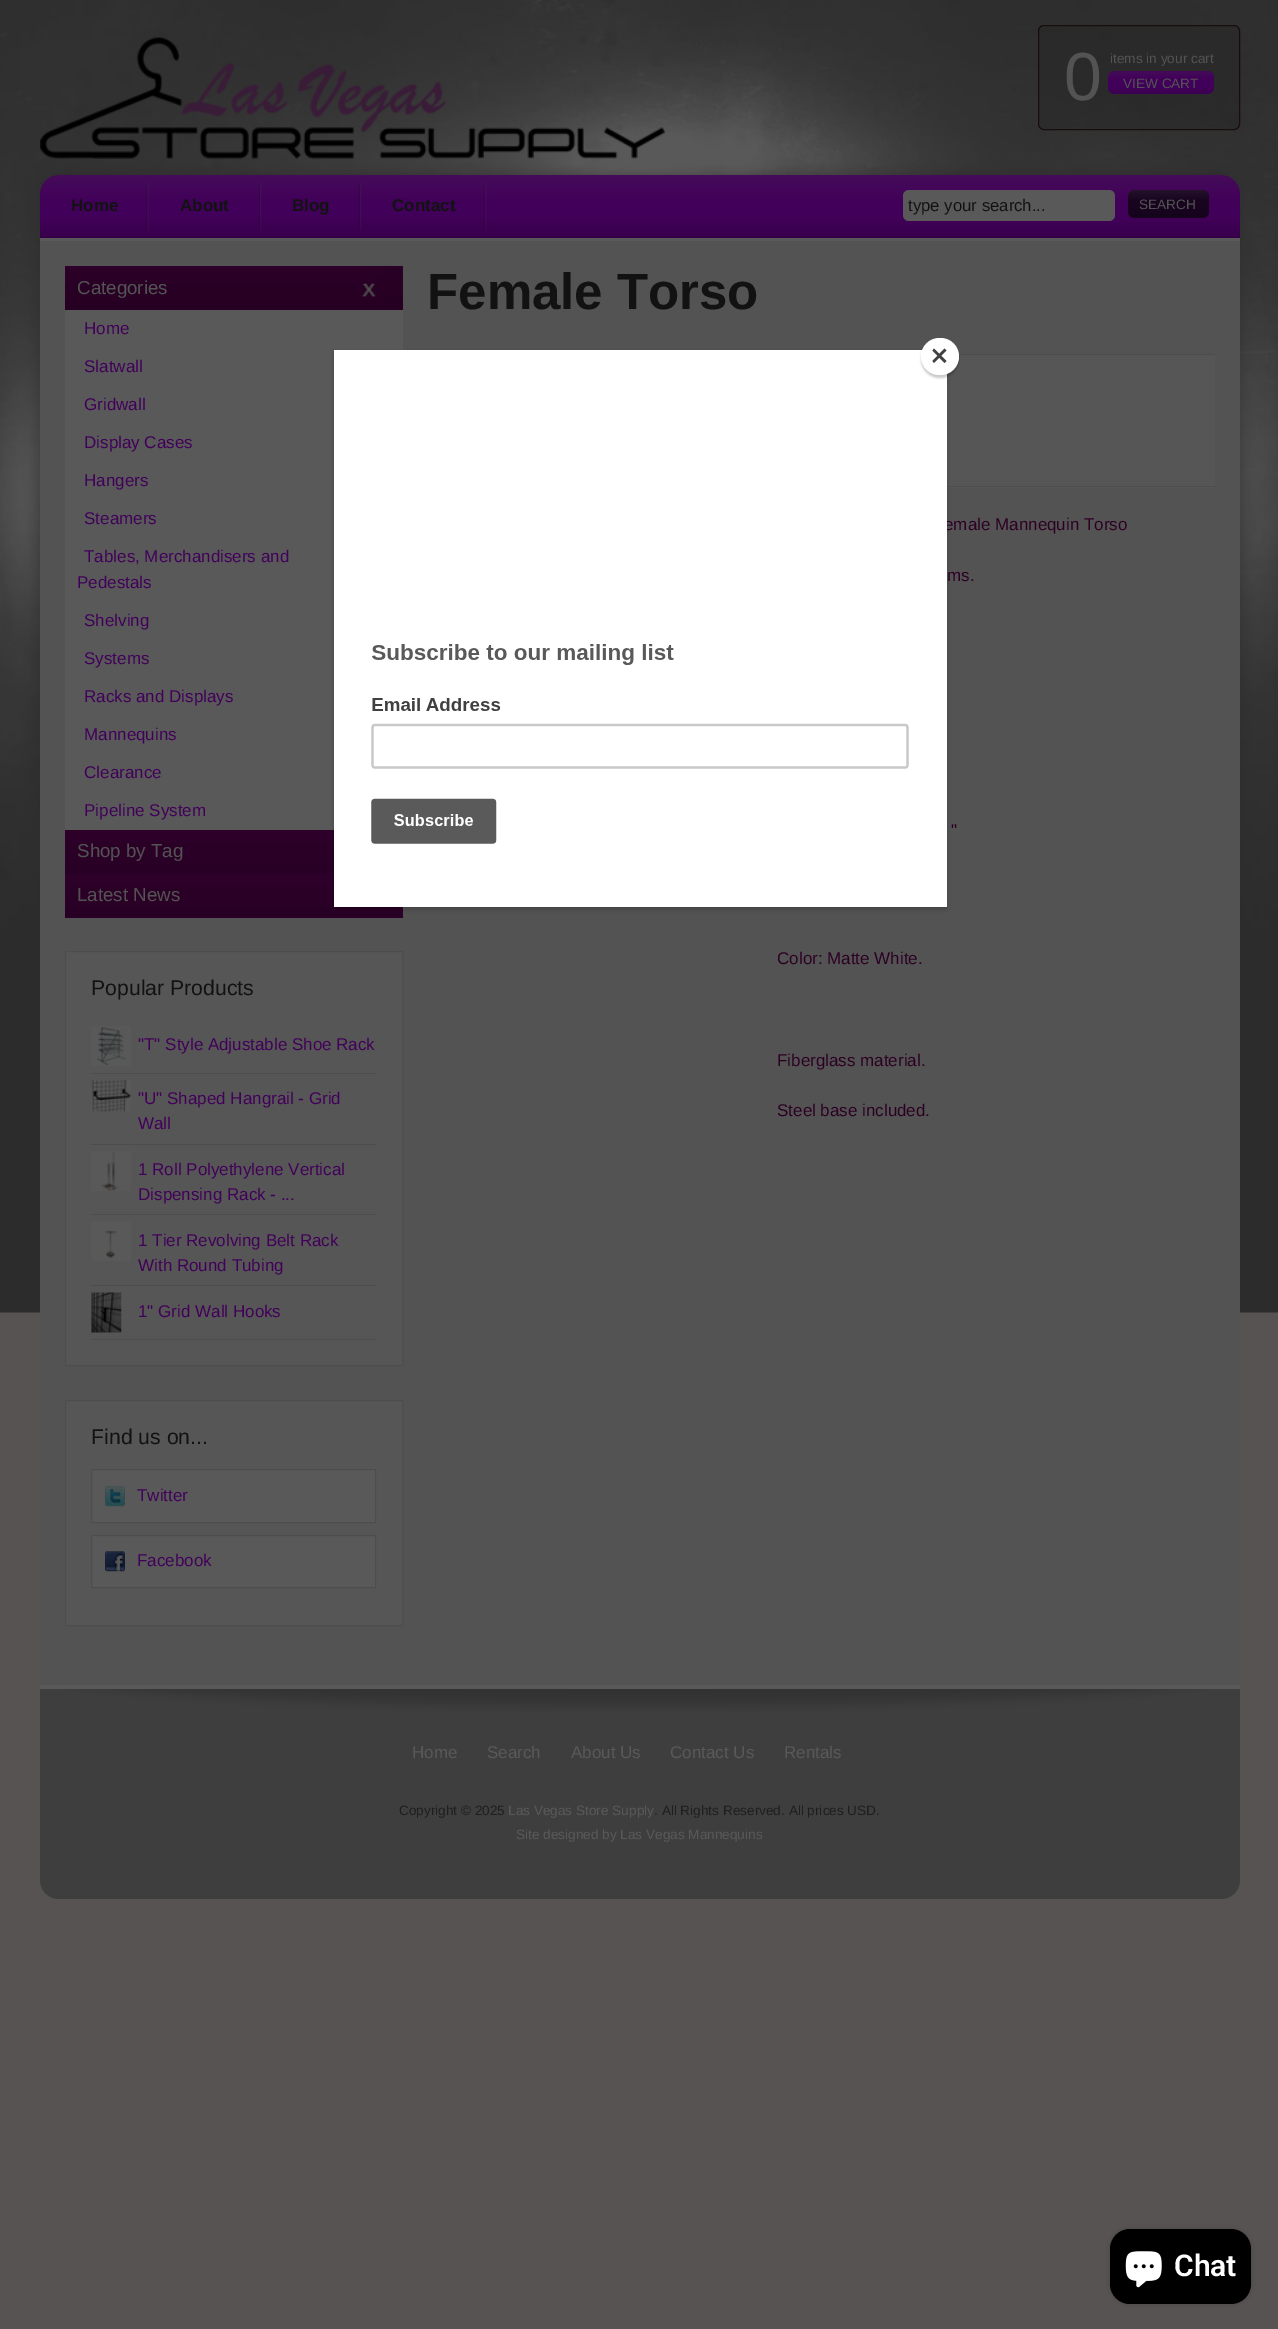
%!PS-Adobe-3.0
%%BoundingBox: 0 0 1278 2329
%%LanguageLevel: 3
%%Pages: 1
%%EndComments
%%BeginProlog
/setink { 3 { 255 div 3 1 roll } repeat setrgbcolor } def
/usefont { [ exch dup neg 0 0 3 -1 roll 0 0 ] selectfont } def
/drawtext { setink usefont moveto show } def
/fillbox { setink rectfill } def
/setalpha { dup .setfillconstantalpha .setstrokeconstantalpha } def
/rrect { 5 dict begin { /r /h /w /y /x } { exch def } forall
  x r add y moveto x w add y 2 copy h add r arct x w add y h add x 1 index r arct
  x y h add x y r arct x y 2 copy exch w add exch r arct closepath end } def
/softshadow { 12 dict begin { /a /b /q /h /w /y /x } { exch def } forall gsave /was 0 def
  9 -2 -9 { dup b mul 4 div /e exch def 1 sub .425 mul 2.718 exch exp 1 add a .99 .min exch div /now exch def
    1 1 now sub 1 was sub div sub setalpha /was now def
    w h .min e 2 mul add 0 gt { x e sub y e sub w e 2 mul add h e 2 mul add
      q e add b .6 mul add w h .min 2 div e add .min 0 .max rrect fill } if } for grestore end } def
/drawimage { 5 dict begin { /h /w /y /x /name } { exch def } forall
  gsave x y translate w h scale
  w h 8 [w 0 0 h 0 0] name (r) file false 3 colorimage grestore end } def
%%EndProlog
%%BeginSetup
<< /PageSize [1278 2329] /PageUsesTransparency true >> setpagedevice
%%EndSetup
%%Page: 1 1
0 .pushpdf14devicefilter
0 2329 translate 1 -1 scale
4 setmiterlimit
0 0 1278 2329 88 83 83 fillbox
(assets/img1.rgb) 0 0 1278 1313 drawimage
(assets/img2.rgb) 40 37 625 122 drawimage
(assets/img3.rgb) 1038 25 202 105 drawimage
24 12 12 setink
1038.5 25.5 201 104 5.5 rrect stroke
(0) 1064 100 /LiberationSans-Regular 68 83 83 83 drawtext
(items in your cart) 1110 63 /LiberationSans-Regular 13.6 83 83 83 drawtext
65 0 89 setink
1108 71 106 23 6 rrect fill
(assets/img4.rgb) 1108 71 105 23 drawimage
(VIEW CART) 1123 88 /LiberationSans-Regular 13.6 83 83 83 drawtext
65 0 89 setink
59 175 moveto 1221 175 lineto 1231.5 175 1240 183.5 1240 194 curveto 1240 241 lineto 40 241 lineto 40 194 lineto 40 183.5 48.5 175 59 175 curveto closepath fill
(assets/img5.rgb) 40 175 1200 63 drawimage
40 238 1200 3 89 89 89 fillbox
(assets/img6.rgb) 146 181 3 52 drawimage
(Home) 71 211 /LiberationSans-Bold 17 18 18 18 drawtext
(assets/img7.rgb) 258 181 4 52 drawimage
(About) 180 211 /LiberationSans-Bold 17 18 18 18 drawtext
(assets/img7.rgb) 358 181 4 52 drawimage
(Blog) 292 211 /LiberationSans-Bold 17 18 18 18 drawtext
(assets/img7.rgb) 483 181 4 52 drawimage
(Contact) 392 211 /LiberationSans-Bold 17 18 18 18 drawtext
89 89 89 setink
903 190 212 31 6 rrect fill
(type your search...) 908 211 /LiberationSans-Regular 16.75 18 18 18 drawtext
24 4 31 setink
1128 190 81 28 6 rrect fill
(assets/img8.rgb) 1128 190 81 27 drawimage
(SEARCH) 1139 209 /LiberationSans-Regular 13.6 83 83 83 drawtext
40 241 1200 1444 83 83 83 fillbox
65 266 338 44 44 0 40 fillbox
(assets/img9.rgb) 65 266 338 44 drawimage
(Categories) 77 294 /LiberationSans-Regular 18.75 83 83 83 drawtext
65 310 338 76 89 89 89 fillbox
(Home) 84 334 /LiberationSans-Regular 17 65 0 89 drawtext
(Slatwall) 84 372 /LiberationSans-Regular 17 65 0 89 drawtext
65 386 269 444 89 89 89 fillbox
(Gridwall) 84 410 /LiberationSans-Regular 17 65 0 89 drawtext
(Display Cases) 84 448 /LiberationSans-Regular 17 65 0 89 drawtext
(Hangers) 84 486 /LiberationSans-Regular 17 65 0 89 drawtext
(Steamers) 84 524 /LiberationSans-Regular 17 65 0 89 drawtext
(Tables, Merchandisers and) 84 562 /LiberationSans-Regular 17 65 0 89 drawtext
(Pedestals) 77 588 /LiberationSans-Regular 17 65 0 89 drawtext
(Shelving) 84 626 /LiberationSans-Regular 17 65 0 89 drawtext
(Systems) 84 664 /LiberationSans-Regular 17 65 0 89 drawtext
(Racks and Displays) 84 702 /LiberationSans-Regular 17 65 0 89 drawtext
(Mannequins) 84 740 /LiberationSans-Regular 17 65 0 89 drawtext
(Clearance) 84 778 /LiberationSans-Regular 17 65 0 89 drawtext
(Pipeline System) 84 816 /LiberationSans-Regular 17 65 0 89 drawtext
65 830 269 44 44 0 40 fillbox
(assets/img10.rgb) 65 842 269 32 drawimage
(Shop by Tag) 77 857 /LiberationSans-Regular 18.75 83 83 83 drawtext
65 874 338 44 44 0 40 fillbox
(assets/img11.rgb) 65 886 337 32 drawimage
(Latest News) 77 901 /LiberationSans-Regular 18.75 83 83 83 drawtext
86 86 86 setink
65.5 951.5 moveto 402.5 951.5 lineto 402.5 1365.5 lineto 65.5 1365.5 lineto closepath gsave fill grestore
77 77 77 setink
stroke
(Popular Products) 91 995 /LiberationSans-Regular 21.25 18 18 18 drawtext
91 1073 285 1 77 77 77 fillbox
(assets/img12.rgb) 91 1026 40 40 drawimage
("T" Style Adjustable Shoe Rack) 138 1050 /LiberationSans-Regular 17 65 0 89 drawtext
91 1144 285 1 77 77 77 fillbox
(assets/img13.rgb) 91 1080 41 32 drawimage
("U" Shaped Hangrail - Grid) 138 1104 /LiberationSans-Regular 17 65 0 89 drawtext
(Wall) 138 1129 /LiberationSans-Regular 17 65 0 89 drawtext
91 1214 285 1 77 77 77 fillbox
(assets/img14.rgb) 91 1151 40 40 drawimage
(1 Roll Polyethylene Vertical) 138 1175 /LiberationSans-Regular 17 65 0 89 drawtext
(Dispensing Rack - ...) 138 1200 /LiberationSans-Regular 17 65 0 89 drawtext
91 1285 285 1 77 77 77 fillbox
(assets/img15.rgb) 91 1221 40 40 drawimage
(1 Tier Revolving Belt Rack) 138 1246 /LiberationSans-Regular 17 65 0 89 drawtext
(With Round Tubing) 138 1271 /LiberationSans-Regular 17 65 0 89 drawtext
91 1339 285 1 77 77 77 fillbox
(assets/img16.rgb) 91 1292 31 41 drawimage
(1" Grid Wall Hooks) 138 1317 /LiberationSans-Regular 17 65 0 89 drawtext
86 86 86 setink
65.5 1400.5 moveto 402.5 1400.5 lineto 402.5 1625.5 lineto 65.5 1625.5 lineto closepath gsave fill grestore
77 77 77 setink
stroke
(Find us on...) 91 1444 /LiberationSans-Regular 21.25 18 18 18 drawtext
92 1470 283 52 89 89 89 fillbox
(assets/img17.rgb) 105 1486 20 21 drawimage
77 77 77 setink
91.5 1469.5 284 53 rectstroke
(Twitter) 137 1501 /LiberationSans-Regular 17 65 0 89 drawtext
92 1536 283 51 89 89 89 fillbox
(assets/img18.rgb) 105 1551 20 21 drawimage
77 77 77 setink
91.5 1535.5 284 52 rectstroke
(Facebook) 137 1566 /LiberationSans-Regular 17 65 0 89 drawtext
(Female Torso) 427 309 /LiberationSans-Bold 51 18 18 18 drawtext
947 355 268 133 86 86 86 fillbox
958 354 257 1 77 77 77 fillbox
947 486 268 1 77 77 77 fillbox
(emale Mannequin Torso) 944 530 /LiberationSans-Regular 17 44 0 35 drawtext
(ms.) 947 581 /LiberationSans-Regular 17 44 0 35 drawtext
(") 951 836 /LiberationSans-Regular 17 44 0 35 drawtext
gsave
778 354 437 899 rectclip
(Color: Matte White.) 777 964 /LiberationSans-Regular 17 44 0 35 drawtext
grestore
(Fiberglass material.) 777 1066 /LiberationSans-Regular 17 44 0 35 drawtext
(Steel base included.) 777 1116 /LiberationSans-Regular 17 44 0 35 drawtext
62 62 62 setink
40 1685 moveto 1240 1685 lineto 1240 1880 lineto 1240 1890.5 1231.5 1899 1221 1899 curveto 59 1899 lineto 48.5 1899 40 1890.5 40 1880 curveto closepath fill
(assets/img19.rgb) 70 1689 1138 24 drawimage
40 1685 1200 4 89 89 89 fillbox
(Home) 412 1758 /LiberationSans-Regular 17 89 89 89 drawtext
(Search) 487 1758 /LiberationSans-Regular 17 89 89 89 drawtext
(About Us) 571 1758 /LiberationSans-Regular 17 89 89 89 drawtext
(Contact Us) 670 1758 /LiberationSans-Regular 17 89 89 89 drawtext
(Rentals) 784 1758 /LiberationSans-Regular 17 89 89 89 drawtext
(Copyright © 2025) 399 1815 /LiberationSans-Regular 13.6 30 30 30 drawtext
(Las Vegas Store Supply) 508 1815 /LiberationSans-Regular 13.6 89 89 89 drawtext
(. All Rights Reserved. All prices USD.) 654 1815 /LiberationSans-Regular 13.6 30 30 30 drawtext
(Site designed by Las Vegas Mannequins) 516 1839 /LiberationSans-Regular 13.6 89 89 89 drawtext
0 0 0 setink
334 353 612 556 0 2.5 0.2 softshadow
(assets/img20.rgb) 334 350 613 557 drawimage
921 340 38 38 19 1 0.2 softshadow
255 255 255 setink
921 338 38 37 18.5 rrect fill
65 65 65 setink
944.5 348.5 moveto 946.5 350.5 lineto 934 363 lineto 932.5 361 lineto closepath fill
932.5 350.5 moveto 934 348.5 lineto 946.5 361 lineto 944.5 363 lineto closepath fill
0 0 0 setink
1110 2229 141 75 20 3 0.15 softshadow
1110 2229 141 75 20 rrect fill
(assets/img21.rgb) 1125 2251 37 37 drawimage
(Chat) 1174 2276 /Roboto-SemiBold 30 255 255 255 drawtext
.poppdf14devicefilter showpage
%%EOF
